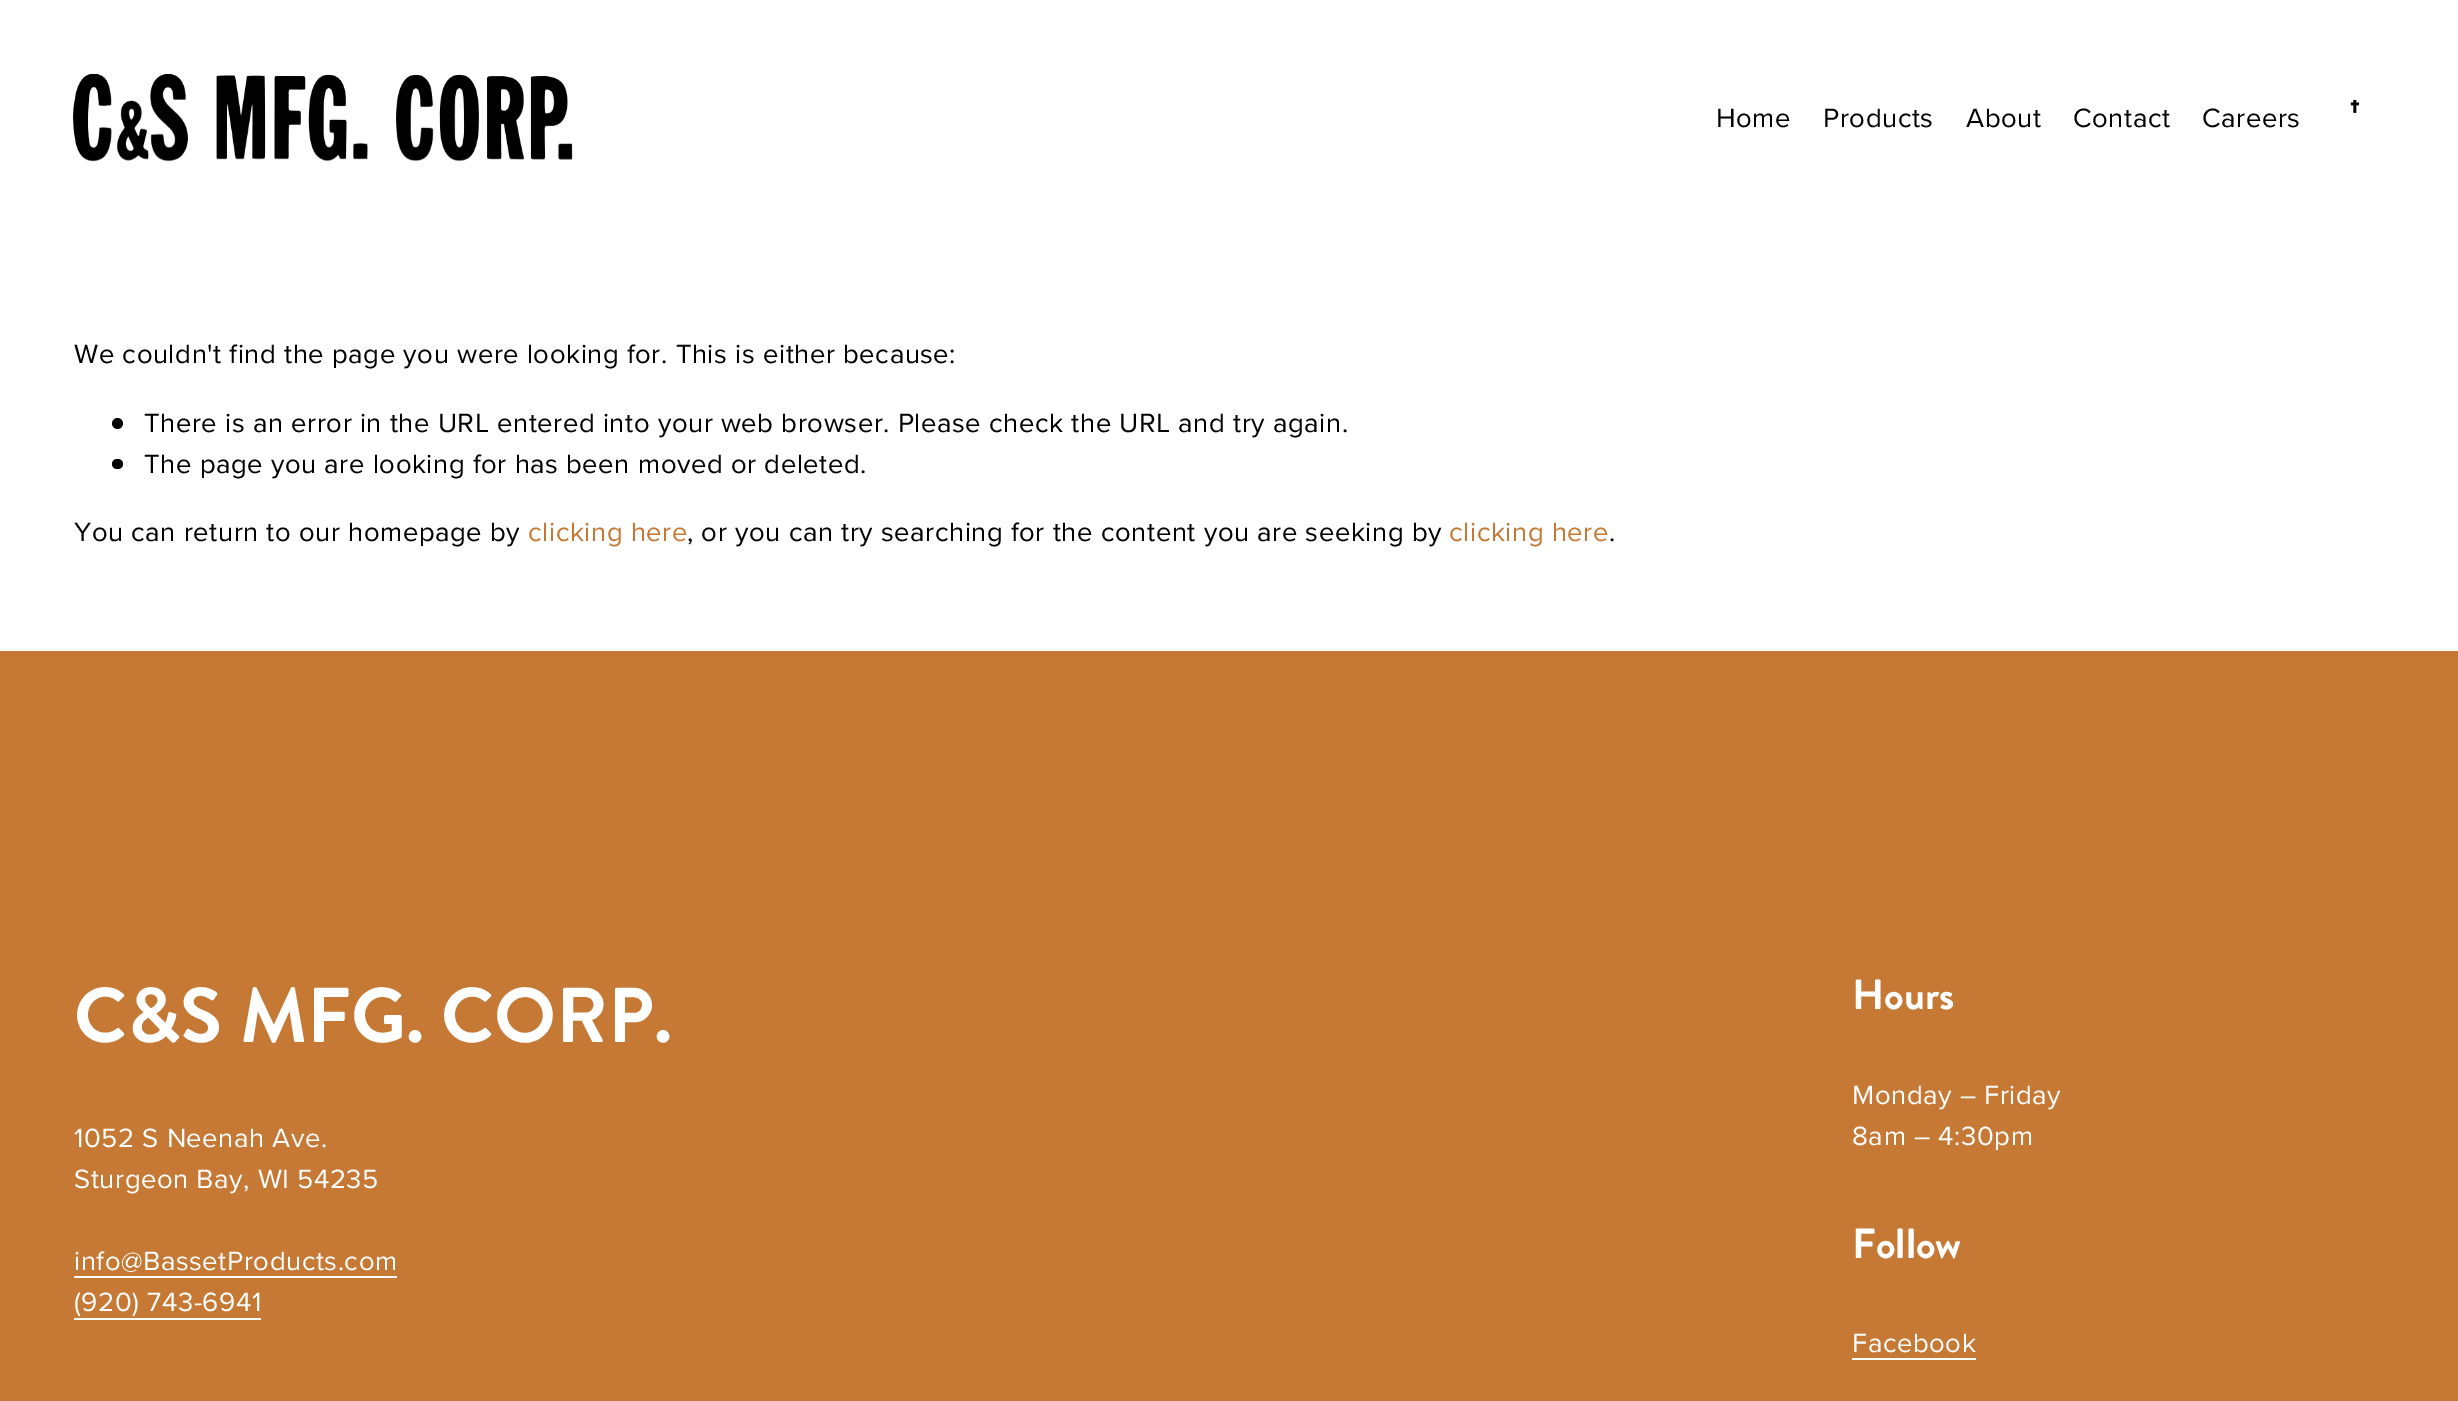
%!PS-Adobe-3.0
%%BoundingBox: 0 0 2458 1401
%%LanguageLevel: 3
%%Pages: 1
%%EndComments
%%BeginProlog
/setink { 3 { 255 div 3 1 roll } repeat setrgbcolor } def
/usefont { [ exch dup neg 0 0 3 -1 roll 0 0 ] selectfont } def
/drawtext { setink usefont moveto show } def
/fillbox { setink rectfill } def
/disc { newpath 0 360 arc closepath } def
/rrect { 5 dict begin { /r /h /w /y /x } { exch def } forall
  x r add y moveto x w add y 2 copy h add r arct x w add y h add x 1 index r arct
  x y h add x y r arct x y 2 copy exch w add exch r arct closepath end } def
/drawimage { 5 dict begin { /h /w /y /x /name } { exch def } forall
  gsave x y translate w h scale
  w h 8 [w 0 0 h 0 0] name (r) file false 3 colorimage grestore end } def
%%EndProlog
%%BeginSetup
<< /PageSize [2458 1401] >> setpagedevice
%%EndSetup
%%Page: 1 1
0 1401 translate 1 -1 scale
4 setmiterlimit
0 0 2458 1401 255 255 255 fillbox
(assets/img1.rgb) 2350 100 10 13 drawimage
(assets/img2.rgb) 73 74 500 88 drawimage
/ProximaNova-Regular 27.45 usefont
0 0 0 setink
1716 127 moveto 0.55 0 (Home) ashow
1823 127 moveto 0.55 0 (Products) ashow
1966 127 moveto 0.55 0 (About) ashow
2073 127 moveto 0.55 0 (Contact) ashow
2202 127 moveto 0.55 0 (Careers) ashow
74 363 moveto 0.55 0 (We couldn't find the page you were looking for. This is either because:) ashow
117.5 423.5 5.5 disc fill
144 432 moveto 0.55 0 (There is an error in the URL entered into your web browser. Please check the URL and try again.) ashow
112 459 11 10 5 rrect fill
144 473 moveto 0.55 0 (The page you are looking for has been moved or deleted.) ashow
74 541 moveto 0.55 0 (You can return to our homepage by) ashow
198 121 53 setink
528 541 moveto 0.55 0 (clicking here) ashow
0 0 0 setink
687 541 moveto 0.55 0 (, or you can try searching for the) ashow
1101 541 moveto 0.55 0 (content you are seeking by) ashow
198 121 53 setink
1449 541 moveto 0.55 0 (clicking here) ashow
0 0 0 setink
1609 541 moveto 0.55 0 (.) ashow
0 651 2458 750 198 121 53 fillbox
(C&S MFG. CORP.) 74 1042 /BrandonGrotesque-Bold 77.5 255 255 255 drawtext
/ProximaNova-Regular 27.45 usefont
74 1147 moveto 0.55 0 (1052 S Neenah Ave.) ashow
74 1188 moveto 0.55 0 (Sturgeon Bay, WI 54235) ashow
74 1270 moveto 0.55 0 (info@BassetProducts.com) ashow
74 1276 323 2 255 255 255 fillbox
74 1311 moveto 0.55 0 (\(920\) 743-6941) ashow
74 1318 187 2 255 255 255 fillbox
(Hours) 1852 1009 /BrandonGrotesque-Bold 42 255 255 255 drawtext
/ProximaNova-Regular 27.45 usefont
1852 1104 moveto 0.55 0 (Monday – Friday) ashow
1852 1145 moveto 0.55 0 (8am – 4:30pm) ashow
(Follow) 1852 1258 /BrandonGrotesque-Bold 42 255 255 255 drawtext
/ProximaNova-Regular 27.45 usefont
1852 1352 moveto 0.55 0 (Facebook) ashow
1852 1358 124 2 255 255 255 fillbox
showpage
%%EOF
